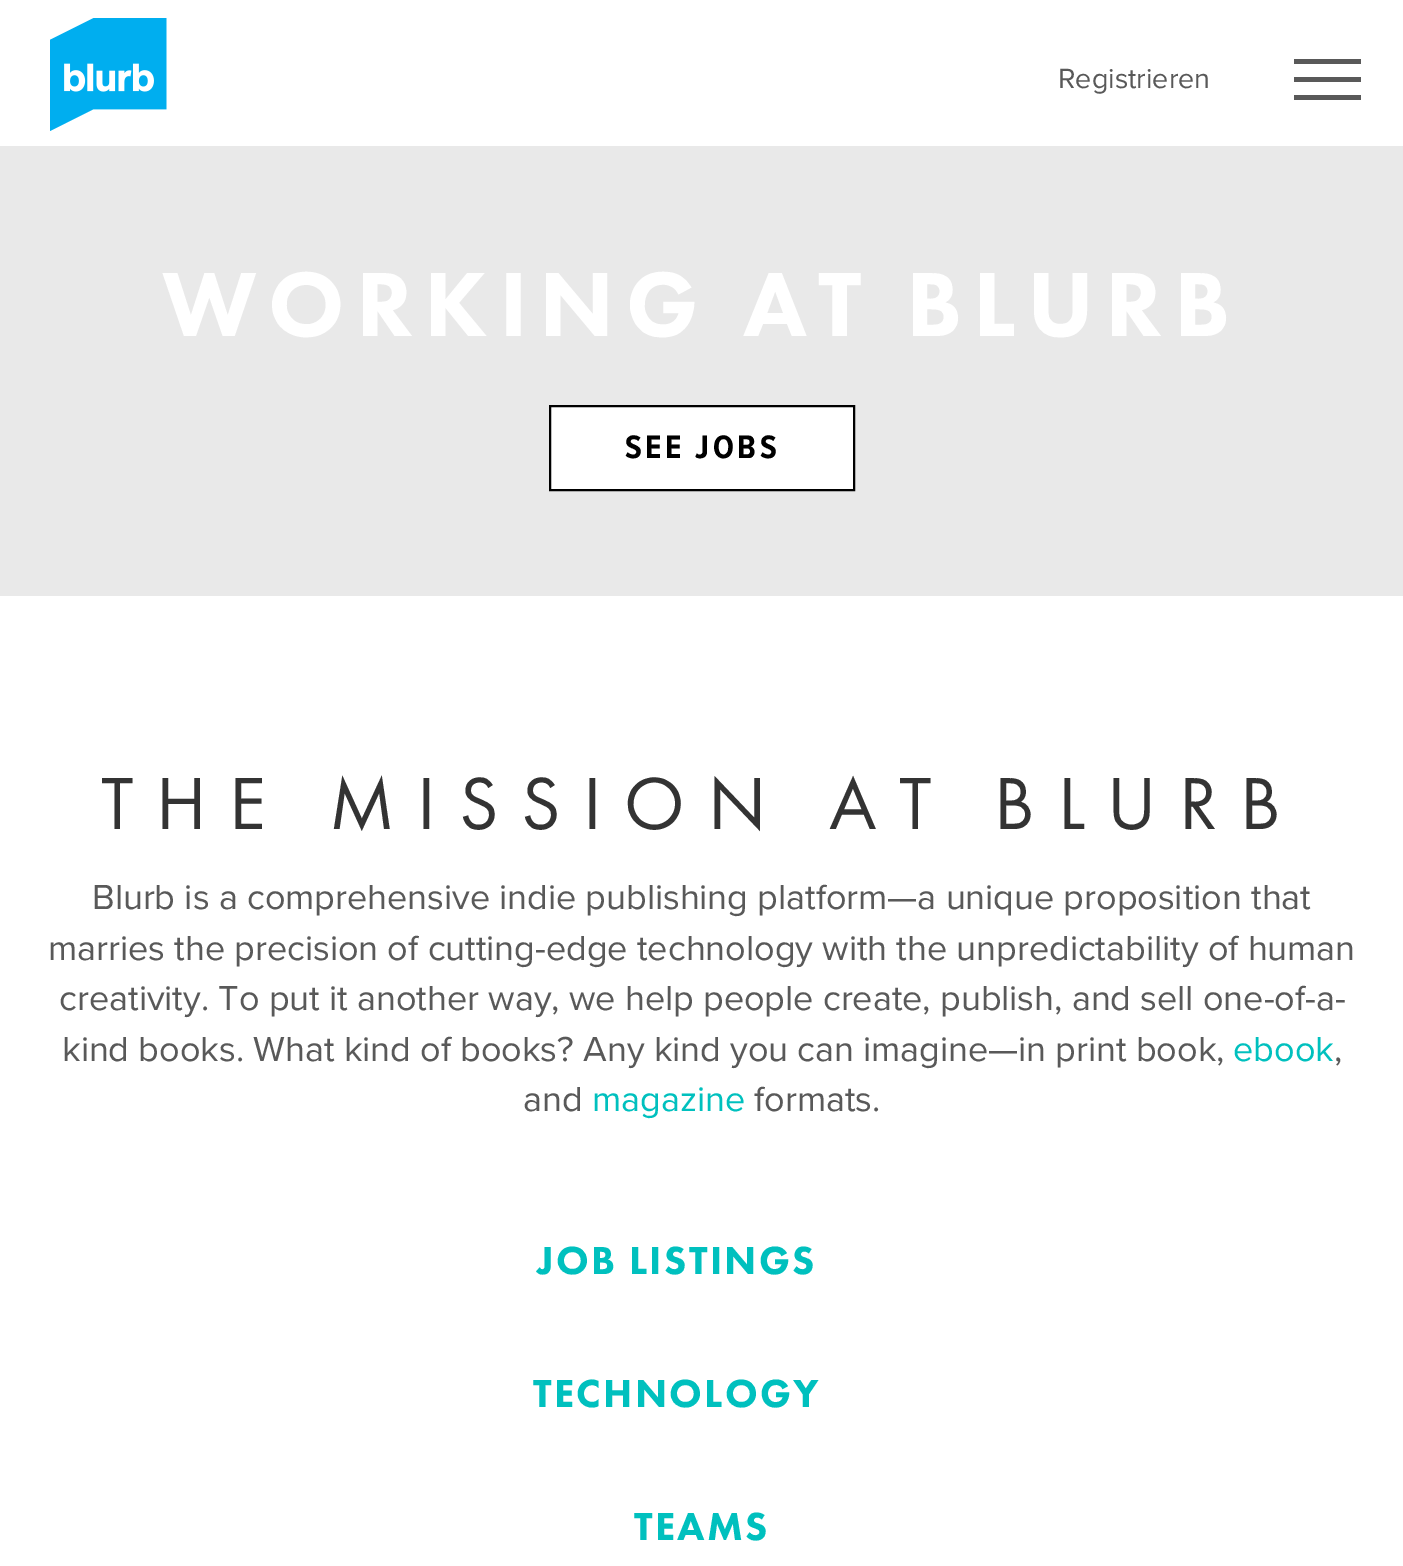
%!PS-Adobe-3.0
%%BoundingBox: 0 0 1403 1566
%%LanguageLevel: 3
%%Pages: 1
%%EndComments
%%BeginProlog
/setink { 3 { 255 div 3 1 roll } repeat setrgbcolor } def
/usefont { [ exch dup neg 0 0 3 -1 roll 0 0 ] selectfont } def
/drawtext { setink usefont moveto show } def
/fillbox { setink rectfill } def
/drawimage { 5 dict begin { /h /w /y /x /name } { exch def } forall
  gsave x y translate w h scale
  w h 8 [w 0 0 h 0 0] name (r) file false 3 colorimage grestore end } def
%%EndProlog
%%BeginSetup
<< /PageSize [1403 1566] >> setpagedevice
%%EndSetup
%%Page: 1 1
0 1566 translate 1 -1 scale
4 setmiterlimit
0 0 1403 1566 255 255 255 fillbox
(assets/img1.rgb) 50 18 117 113 drawimage
(Registrieren) 1058 88 /ProximaNova-Regular 28.75 89 89 89 drawtext
1294 95 67 5 89 89 89 fillbox
1294 77 67 5 89 89 89 fillbox
1294 59 67 5 89 89 89 fillbox
0 146 1403 450 233 233 233 fillbox
/FuturaPT-Black 94.5 usefont
255 255 255 setink
162 336 moveto 11.25 0 (WORKING AT BLURB) ashow
550 406 moveto 854 406 lineto 854 490 lineto 550 490 lineto closepath gsave fill grestore
0 0 0 setink
2 setlinewidth
stroke
/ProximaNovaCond-Bold 33.75 usefont
625 458 moveto 3.5 0 (SEE JOBS) ashow
/FuturaPT-Regular 76.5 usefont
51 51 51 setink
101 829 moveto 22.5 0 (THE MISSION AT BLURB) ashow
(Blurb is a comprehensive indie publishing platform—a unique proposition that) 92 909 /ProximaNova-Regular 36 89 89 89 drawtext
(marries the precision of cutting-edge technology with the unpredictability of human) 48 960 /ProximaNova-Regular 36 89 89 89 drawtext
(creativity. To put it another way, we help people create, publish, and sell one-of-a-) 59 1010 /ProximaNova-Regular 36 89 89 89 drawtext
(kind books. What kind of books? Any kind you can imagine—in print book,) 62 1061 /ProximaNova-Regular 36 89 89 89 drawtext
(ebook) 1233 1061 /ProximaNova-Regular 36 0 192 190 drawtext
(,) 1334 1061 /ProximaNova-Regular 36 89 89 89 drawtext
(and) 523 1111 /ProximaNova-Regular 36 89 89 89 drawtext
(magazine) 592 1111 /ProximaNova-Regular 36 0 192 190 drawtext
(formats.) 754 1111 /ProximaNova-Regular 36 89 89 89 drawtext
/FuturaPT-Black 40.5 usefont
0 192 190 setink
537 1274 moveto 2.25 0 (JOB LISTINGS) ashow
533 1407 moveto 2.25 0 (TECHNOLOGY) ashow
634 1540 moveto 2.25 0 (TEAMS) ashow
showpage
%%EOF
